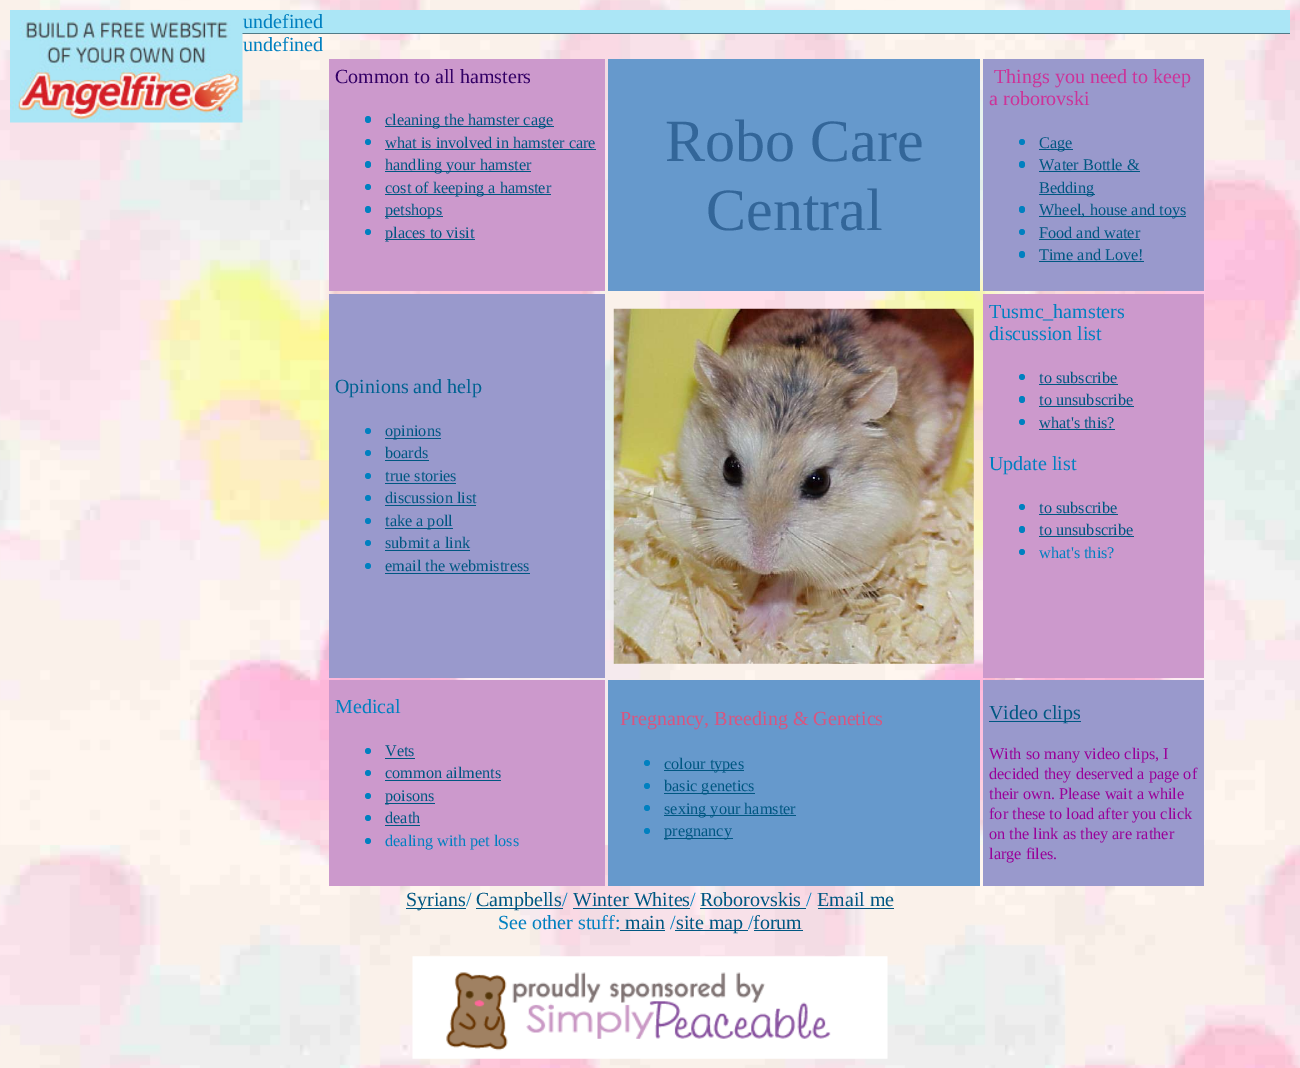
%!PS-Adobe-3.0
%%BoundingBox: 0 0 1300 1068
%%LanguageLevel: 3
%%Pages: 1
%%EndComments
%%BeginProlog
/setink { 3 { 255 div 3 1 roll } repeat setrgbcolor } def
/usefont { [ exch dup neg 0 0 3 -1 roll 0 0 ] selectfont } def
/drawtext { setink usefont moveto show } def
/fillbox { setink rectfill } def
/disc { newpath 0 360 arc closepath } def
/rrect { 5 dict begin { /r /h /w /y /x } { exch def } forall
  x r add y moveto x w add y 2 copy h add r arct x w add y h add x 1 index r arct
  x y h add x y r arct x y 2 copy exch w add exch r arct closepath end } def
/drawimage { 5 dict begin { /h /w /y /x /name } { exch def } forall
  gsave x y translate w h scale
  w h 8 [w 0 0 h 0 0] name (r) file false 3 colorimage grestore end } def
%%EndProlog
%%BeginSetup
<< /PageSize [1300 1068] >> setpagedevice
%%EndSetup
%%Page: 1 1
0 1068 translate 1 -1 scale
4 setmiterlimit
0 0 1300 1068 255 255 255 fillbox
(assets/img1.rgb) 0 0 1300 1068 drawimage
10 10 1280 23 171 230 246 fillbox
242 33 1048 1 80 122 135 fillbox
(undefined) 243 51 /LiberationSerif-Regular 20 0 128 192 drawtext
(assets/img2.rgb) 10 20 233 103 drawimage
(undefined) 243 28 /LiberationSerif-Regular 20 0 128 192 drawtext
329 59 276 232 204 153 204 fillbox
(Common to all hamsters) 335 83 /LiberationSerif-Regular 20 51 0 102 drawtext
0 128 192 setink
365 116 6 7 3 rrect fill
385 126 169 1 0 87 130 fillbox
(cleaning the hamster cage) 385 125 /LiberationSerif-Regular 16.25 0 87 130 drawtext
0 128 192 setink
368 142 3 disc fill
(what is involved in hamster care) 385 148 /LiberationSerif-Regular 16.25 0 87 130 drawtext
385 149 211 1 0 87 130 fillbox
0 128 192 setink
365 161 6 7 3 rrect fill
385 171 146 1 0 87 130 fillbox
(handling your hamster) 385 170 /LiberationSerif-Regular 16.25 0 87 130 drawtext
0 128 192 setink
368 187 3 disc fill
385 194 166 1 0 87 130 fillbox
(cost of keeping a hamster) 385 193 /LiberationSerif-Regular 16.25 0 87 130 drawtext
0 128 192 setink
365 206 6 7 3 rrect fill
385 216 58 1 0 87 130 fillbox
(petshops) 385 215 /LiberationSerif-Regular 16.25 0 87 130 drawtext
0 128 192 setink
368 232 3 disc fill
385 239 90 1 0 87 130 fillbox
(places to visit) 385 238 /LiberationSerif-Regular 16.25 0 87 130 drawtext
608 59 372 232 102 153 204 fillbox
(Robo Care) 665 161 /LiberationSerif-Regular 60 51 102 153 drawtext
(Central) 706 230 /LiberationSerif-Regular 60 51 102 153 drawtext
983 59 221 232 153 153 204 fillbox
(Things you need to keep) 994 83 /LiberationSerif-Regular 20 204 51 153 drawtext
(a roborovski) 989 105 /LiberationSerif-Regular 20 204 51 153 drawtext
0 128 192 setink
1022 142 3 disc fill
1039 149 34 1 0 87 130 fillbox
(Cage) 1039 148 /LiberationSerif-Regular 16.25 0 87 130 drawtext
0 128 192 setink
1019 161 6 7 3 rrect fill
(Water Bottle &) 1039 170 /LiberationSerif-Regular 16.25 0 87 130 drawtext
1039 171 101 1 0 87 130 fillbox
1039 194 56 1 0 87 130 fillbox
(Bedding) 1039 193 /LiberationSerif-Regular 16.25 0 87 130 drawtext
0 128 192 setink
1019 206 6 7 3 rrect fill
1039 216 147 1 0 87 130 fillbox
(Wheel, house and toys) 1039 215 /LiberationSerif-Regular 16.25 0 87 130 drawtext
0 128 192 setink
1022 232 3 disc fill
(Food and water) 1039 238 /LiberationSerif-Regular 16.25 0 87 130 drawtext
1039 239 101 1 0 87 130 fillbox
0 128 192 setink
1019 251 6 7 3 rrect fill
(Time and Love!) 1039 260 /LiberationSerif-Regular 16.25 0 87 130 drawtext
1039 261 105 1 0 87 130 fillbox
329 294 276 384 153 153 204 fillbox
(Opinions and help) 335 393 /LiberationSerif-Regular 20 0 98 145 drawtext
0 128 192 setink
368 431 3 disc fill
385 438 56 1 0 87 130 fillbox
(opinions) 385 436 /LiberationSerif-Regular 16.25 0 87 130 drawtext
0 128 192 setink
368 453 3 disc fill
(boards) 385 458 /LiberationSerif-Regular 16.25 0 87 130 drawtext
385 460 44 1 0 87 130 fillbox
0 128 192 setink
368 476 3 disc fill
(true stories) 385 481 /LiberationSerif-Regular 16.25 0 87 130 drawtext
385 483 71 1 0 87 130 fillbox
0 128 192 setink
368 498 3 disc fill
(discussion list) 385 503 /LiberationSerif-Regular 16.25 0 87 130 drawtext
385 505 91 1 0 87 130 fillbox
0 128 192 setink
368 521 3 disc fill
385 528 68 1 0 87 130 fillbox
(take a poll) 385 526 /LiberationSerif-Regular 16.25 0 87 130 drawtext
0 128 192 setink
368 543 3 disc fill
(submit a link) 385 548 /LiberationSerif-Regular 16.25 0 87 130 drawtext
385 550 85 1 0 87 130 fillbox
0 128 192 setink
368 566 3 disc fill
(email the webmistress) 385 571 /LiberationSerif-Regular 16.25 0 87 130 drawtext
385 573 145 1 0 87 130 fillbox
(assets/img3.rgb) 613 308 361 356 drawimage
983 294 221 384 204 153 204 fillbox
(Tusmc_hamsters) 989 318 /LiberationSerif-Regular 20 0 128 192 drawtext
(discussion list) 989 340 /LiberationSerif-Regular 20 0 128 192 drawtext
1022 377 3 disc fill
(to subscribe) 1039 383 /LiberationSerif-Regular 16.25 0 87 130 drawtext
1039 384 79 1 0 87 130 fillbox
0 128 192 setink
1019 396 6 7 3 rrect fill
(to unsubscribe) 1039 405 /LiberationSerif-Regular 16.25 0 87 130 drawtext
1039 406 95 1 0 87 130 fillbox
0 128 192 setink
1022 422 3 disc fill
(what's this?) 1039 428 /LiberationSerif-Regular 16.25 0 87 130 drawtext
1039 429 76 1 0 87 130 fillbox
(Update list) 989 470 /LiberationSerif-Regular 20 0 128 192 drawtext
1022 507 3 disc fill
(to subscribe) 1039 513 /LiberationSerif-Regular 16.25 0 87 130 drawtext
1039 514 79 1 0 87 130 fillbox
0 128 192 setink
1019 526 6 7 3 rrect fill
(to unsubscribe) 1039 535 /LiberationSerif-Regular 16.25 0 87 130 drawtext
1039 536 95 1 0 87 130 fillbox
0 128 192 setink
1022 552 3 disc fill
(what's this?) 1039 558 /LiberationSerif-Regular 16.25 0 128 192 drawtext
329 680 276 206 204 153 204 fillbox
(Medical) 335 713 /LiberationSerif-Regular 20 0 128 192 drawtext
368 751 3 disc fill
(Vets) 385 756 /LiberationSerif-Regular 16.25 0 87 130 drawtext
385 758 30 1 0 87 130 fillbox
0 128 192 setink
368 773 3 disc fill
(common ailments) 385 778 /LiberationSerif-Regular 16.25 0 87 130 drawtext
385 780 116 1 0 87 130 fillbox
0 128 192 setink
368 796 3 disc fill
385 803 50 1 0 87 130 fillbox
(poisons) 385 801 /LiberationSerif-Regular 16.25 0 87 130 drawtext
0 128 192 setink
368 818 3 disc fill
(death) 385 823 /LiberationSerif-Regular 16.25 0 87 130 drawtext
385 825 35 1 0 87 130 fillbox
0 128 192 setink
368 841 3 disc fill
(dealing with pet loss) 385 846 /LiberationSerif-Regular 16.25 0 128 192 drawtext
608 680 372 206 102 153 204 fillbox
(Pregnancy, Breeding & Genetics) 620 725 /LiberationSerif-Regular 20 217 85 128 drawtext
0 128 192 setink
647 763 3 disc fill
664 770 80 1 0 87 130 fillbox
(colour types) 664 769 /LiberationSerif-Regular 16.25 0 87 130 drawtext
0 128 192 setink
647 786 3 disc fill
664 793 91 1 0 87 130 fillbox
(basic genetics) 664 791 /LiberationSerif-Regular 16.25 0 87 130 drawtext
0 128 192 setink
647 808 3 disc fill
664 815 132 1 0 87 130 fillbox
(sexing your hamster) 664 814 /LiberationSerif-Regular 16.25 0 87 130 drawtext
0 128 192 setink
647 831 3 disc fill
664 838 69 1 0 87 130 fillbox
(pregnancy) 664 836 /LiberationSerif-Regular 16.25 0 87 130 drawtext
983 680 221 206 153 153 204 fillbox
989 721 92 1 0 87 130 fillbox
(Video clips) 989 719 /LiberationSerif-Regular 20 0 87 130 drawtext
(With so many video clips, I) 989 759 /LiberationSerif-Regular 16.25 153 0 153 drawtext
(decided they deserved a page of) 989 779 /LiberationSerif-Regular 16.25 153 0 153 drawtext
(their own. Please wait a while) 989 799 /LiberationSerif-Regular 16.25 153 0 153 drawtext
(for these to load after you click) 989 819 /LiberationSerif-Regular 16.25 153 0 153 drawtext
(on the link as they are rather) 989 839 /LiberationSerif-Regular 16.25 153 0 153 drawtext
(large files.) 989 859 /LiberationSerif-Regular 16.25 153 0 153 drawtext
406 908 60 1 0 87 130 fillbox
(Syrians) 406 906 /LiberationSerif-Regular 20 0 87 130 drawtext
(/) 466 906 /LiberationSerif-Regular 20 0 128 192 drawtext
476 908 87 1 0 87 130 fillbox
(Campbells) 476 906 /LiberationSerif-Regular 20 0 87 130 drawtext
(/) 562 906 /LiberationSerif-Regular 20 0 128 192 drawtext
(Winter Whites) 573 906 /LiberationSerif-Regular 20 0 87 130 drawtext
573 908 117 1 0 87 130 fillbox
(/) 690 906 /LiberationSerif-Regular 20 0 128 192 drawtext
(Roborovskis) 700 906 /LiberationSerif-Regular 20 0 87 130 drawtext
700 908 106 1 0 87 130 fillbox
(/) 806 906 /LiberationSerif-Regular 20 0 128 192 drawtext
(Email me) 817 906 /LiberationSerif-Regular 20 0 87 130 drawtext
818 908 76 1 0 87 130 fillbox
(See other stuff:) 498 929 /LiberationSerif-Regular 20 0 128 192 drawtext
(main) 625 929 /LiberationSerif-Regular 20 0 87 130 drawtext
620 930 45 1 0 87 130 fillbox
(/) 670 929 /LiberationSerif-Regular 20 0 128 192 drawtext
675 930 73 1 0 87 130 fillbox
(site map) 676 929 /LiberationSerif-Regular 20 0 87 130 drawtext
(/) 748 929 /LiberationSerif-Regular 20 0 128 192 drawtext
754 930 49 1 0 87 130 fillbox
(forum) 753 929 /LiberationSerif-Regular 20 0 87 130 drawtext
(assets/img4.rgb) 412 956 476 103 drawimage
showpage
%%EOF
